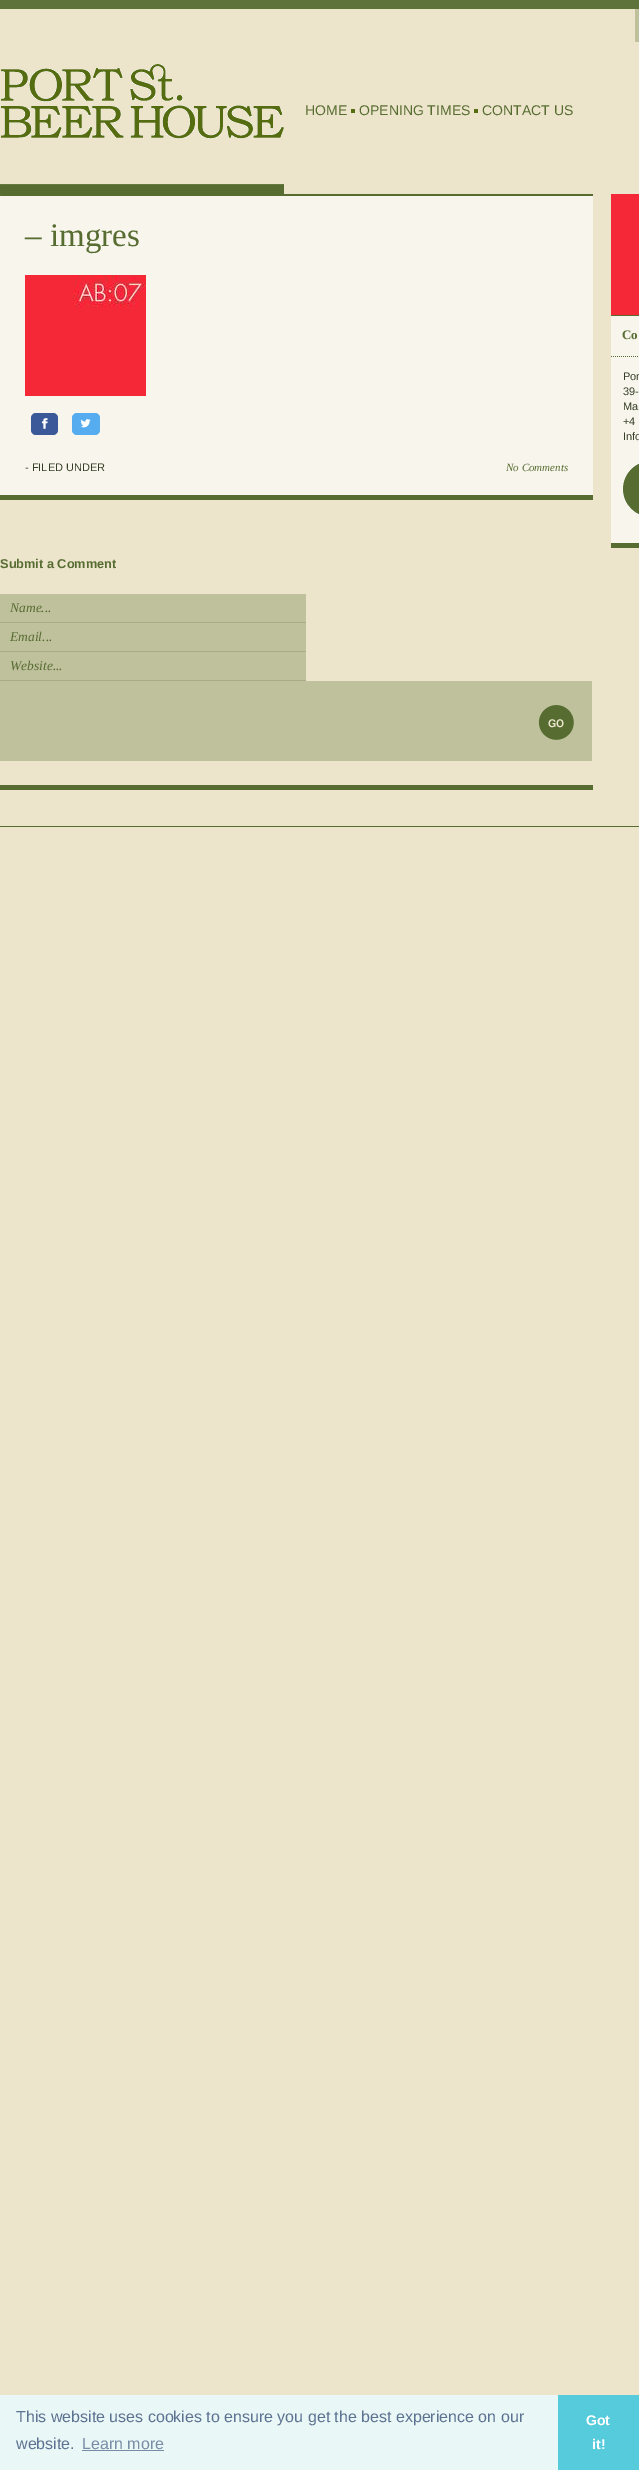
%!PS-Adobe-3.0
%%BoundingBox: 0 0 639 2470
%%LanguageLevel: 3
%%Pages: 1
%%EndComments
%%BeginProlog
/setink { 3 { 255 div 3 1 roll } repeat setrgbcolor } def
/usefont { [ exch dup neg 0 0 3 -1 roll 0 0 ] selectfont } def
/drawtext { setink usefont moveto show } def
/fillbox { setink rectfill } def
/rrect { 5 dict begin { /r /h /w /y /x } { exch def } forall
  x r add y moveto x w add y 2 copy h add r arct x w add y h add x 1 index r arct
  x y h add x y r arct x y 2 copy exch w add exch r arct closepath end } def
/drawimage { 5 dict begin { /h /w /y /x /name } { exch def } forall
  gsave x y translate w h scale
  w h 8 [w 0 0 h 0 0] name (r) file false 3 colorimage grestore end } def
%%EndProlog
%%BeginSetup
<< /PageSize [639 2470] >> setpagedevice
%%EndSetup
%%Page: 1 1
0 2470 translate 1 -1 scale
4 setmiterlimit
0 0 639 2470 237 229 203 fillbox
0 0 639 9 94 115 57 fillbox
635 9 4 33 191 192 156 fillbox
(assets/img1.rgb) 1 64 283 75 drawimage
(HOME) 305 115 /LiberationSans-Regular 14 86 108 49 drawtext
351 109 4 4 86 108 17 fillbox
(OPENING TIMES) 359 115 /LiberationSans-Regular 14 86 108 49 drawtext
474 109 4 4 86 108 17 fillbox
(CONTACT US) 482 115 /LiberationSans-Regular 14 86 108 49 drawtext
0 826 639 1 86 108 49 fillbox
(assets/img2.rgb) 0 184 593 11 drawimage
0 495 593 5 86 108 49 fillbox
0 196 593 299 248 245 236 fillbox
0 195 593 1 86 108 49 fillbox
(– imgres) 25 246 /LiberationSerif-Regular 33 86 108 49 drawtext
(assets/img3.rgb) 25 275 121 121 drawimage
59 89 152 setink
31 413 27 22 5 rrect fill
(assets/img4.rgb) 42 418 6 11 drawimage
85 172 238 setink
72 413 28 22 5 rrect fill
(assets/img5.rgb) 80 419 11 9 drawimage
(- FILED UNDER) 25 471 /LiberationSans-Regular 11 53 62 38 drawtext
(No Comments) 506 471 /LiberationSerif-Italic 11 86 108 49 drawtext
0 785 593 5 86 108 49 fillbox
(Submit a Comment) 0 568 /LiberationSans-Bold 12.75 86 108 49 drawtext
0 594 306 28 191 192 156 fillbox
0 622 306 1 166 172 131 fillbox
(Name...) 10 612 /LiberationSerif-Italic 13.5 86 108 49 drawtext
0 623 306 28 191 192 156 fillbox
0 651 306 1 166 172 131 fillbox
(Email...) 10 641 /LiberationSerif-Italic 13.5 86 108 49 drawtext
0 652 306 28 191 192 156 fillbox
0 680 306 1 166 172 131 fillbox
(Website...) 10 670 /LiberationSerif-Italic 13.5 86 108 49 drawtext
0 681 592 80 191 192 156 fillbox
(assets/img6.rgb) 538 705 36 35 drawimage
611 194 28 121 245 40 55 fillbox
611 316 28 227 248 245 236 fillbox
611 315 28 1 86 108 49 fillbox
611 543 28 5 86 108 49 fillbox
(Co) 622 339 /LiberationSerif-Bold 13 86 108 49 drawtext
(assets/img7.rgb) 611 356 27 1 drawimage
(Por) 623 380 /LiberationSans-Regular 11 53 62 38 drawtext
(39-) 623 395 /LiberationSans-Regular 11 53 62 38 drawtext
(Ma) 623 410 /LiberationSans-Regular 11 53 62 38 drawtext
(+4) 623 425 /LiberationSans-Regular 11 53 62 38 drawtext
(Info) 623 440 /LiberationSans-Regular 11 53 62 38 drawtext
(assets/img8.rgb) 622 463 17 52 drawimage
0 2395 558 75 234 247 247 fillbox
(This website uses cookies to ensure you get the best experience on our) 16 2422 /LiberationSans-Regular 16 92 114 145 drawtext
(website.) 16 2449 /LiberationSans-Regular 16 92 114 145 drawtext
(Learn more) 82 2449 /LiberationSans-Regular 16 120 141 165 drawtext
82 2450 82 1 120 141 165 fillbox
558 2395 81 75 86 203 219 fillbox
(Got) 586 2425 /LiberationSans-Bold 14 255 255 255 drawtext
(it!) 592 2449 /LiberationSans-Bold 14 255 255 255 drawtext
showpage
%%EOF
